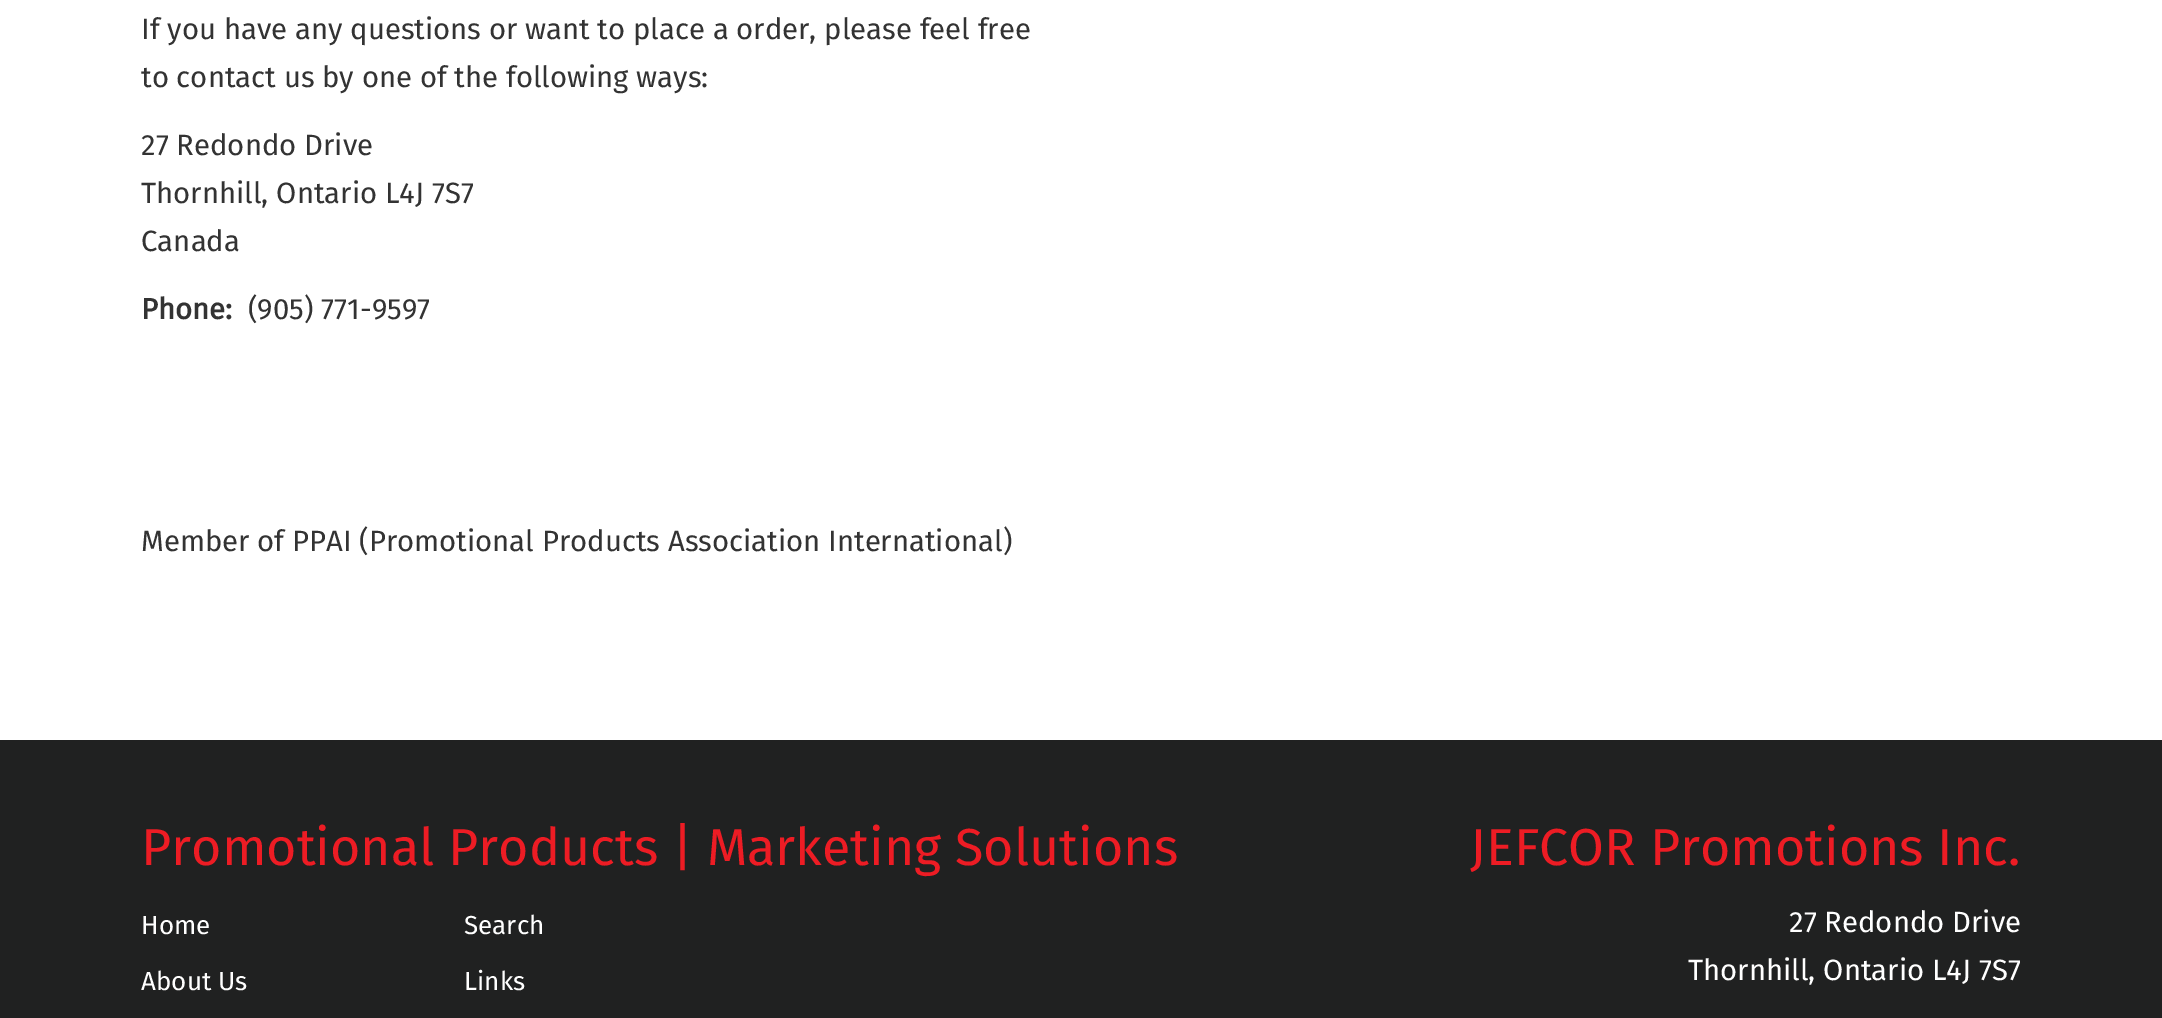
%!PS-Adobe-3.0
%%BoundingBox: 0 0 2162 1018
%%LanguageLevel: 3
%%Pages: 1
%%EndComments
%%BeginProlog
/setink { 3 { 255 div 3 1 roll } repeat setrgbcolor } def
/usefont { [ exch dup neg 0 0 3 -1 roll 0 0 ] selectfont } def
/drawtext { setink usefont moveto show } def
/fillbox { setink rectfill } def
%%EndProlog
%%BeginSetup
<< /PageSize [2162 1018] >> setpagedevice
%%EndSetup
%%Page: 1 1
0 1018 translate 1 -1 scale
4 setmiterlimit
0 0 2162 1018 255 255 255 fillbox
(If you have any questions or want to place a order, please feel free) 141 39 /FiraSans-Regular 29.3 51 51 51 drawtext
(to contact us by one of the following ways:) 141 87 /FiraSans-Regular 29.3 51 51 51 drawtext
(27 Redondo Drive) 141 155 /FiraSans-Regular 29.3 51 51 51 drawtext
(Thornhill, Ontario L4J 7S7) 141 203 /FiraSans-Regular 29.3 51 51 51 drawtext
(Canada) 141 251 /FiraSans-Regular 29.3 51 51 51 drawtext
(Phone:) 141 319 /FiraSans-Bold 29.3 51 51 51 drawtext
(\(905\) 771-9597) 248 319 /FiraSans-Regular 29.3 51 51 51 drawtext
(Member of PPAI \(Promotional Products Association International\)) 141 551 /FiraSans-Regular 29.3 51 51 51 drawtext
0 740 2162 278 32 33 33 fillbox
(Promotional Products | Marketing Solutions) 141 865 /FiraSans-Regular 52 237 28 36 drawtext
(Home) 141 934 /FiraSans-Regular 26 255 255 255 drawtext
(About Us) 141 990 /FiraSans-Regular 26 255 255 255 drawtext
(Search) 464 934 /FiraSans-Regular 26 255 255 255 drawtext
(Links) 464 990 /FiraSans-Regular 26 255 255 255 drawtext
(JEFCOR Promotions Inc.) 1470 865 /FiraSans-Regular 52 237 28 36 drawtext
(27 Redondo Drive) 1789 932 /FiraSans-Regular 29.3 255 255 255 drawtext
(Thornhill, Ontario L4J 7S7) 1688 980 /FiraSans-Regular 29.3 255 255 255 drawtext
showpage
%%EOF
